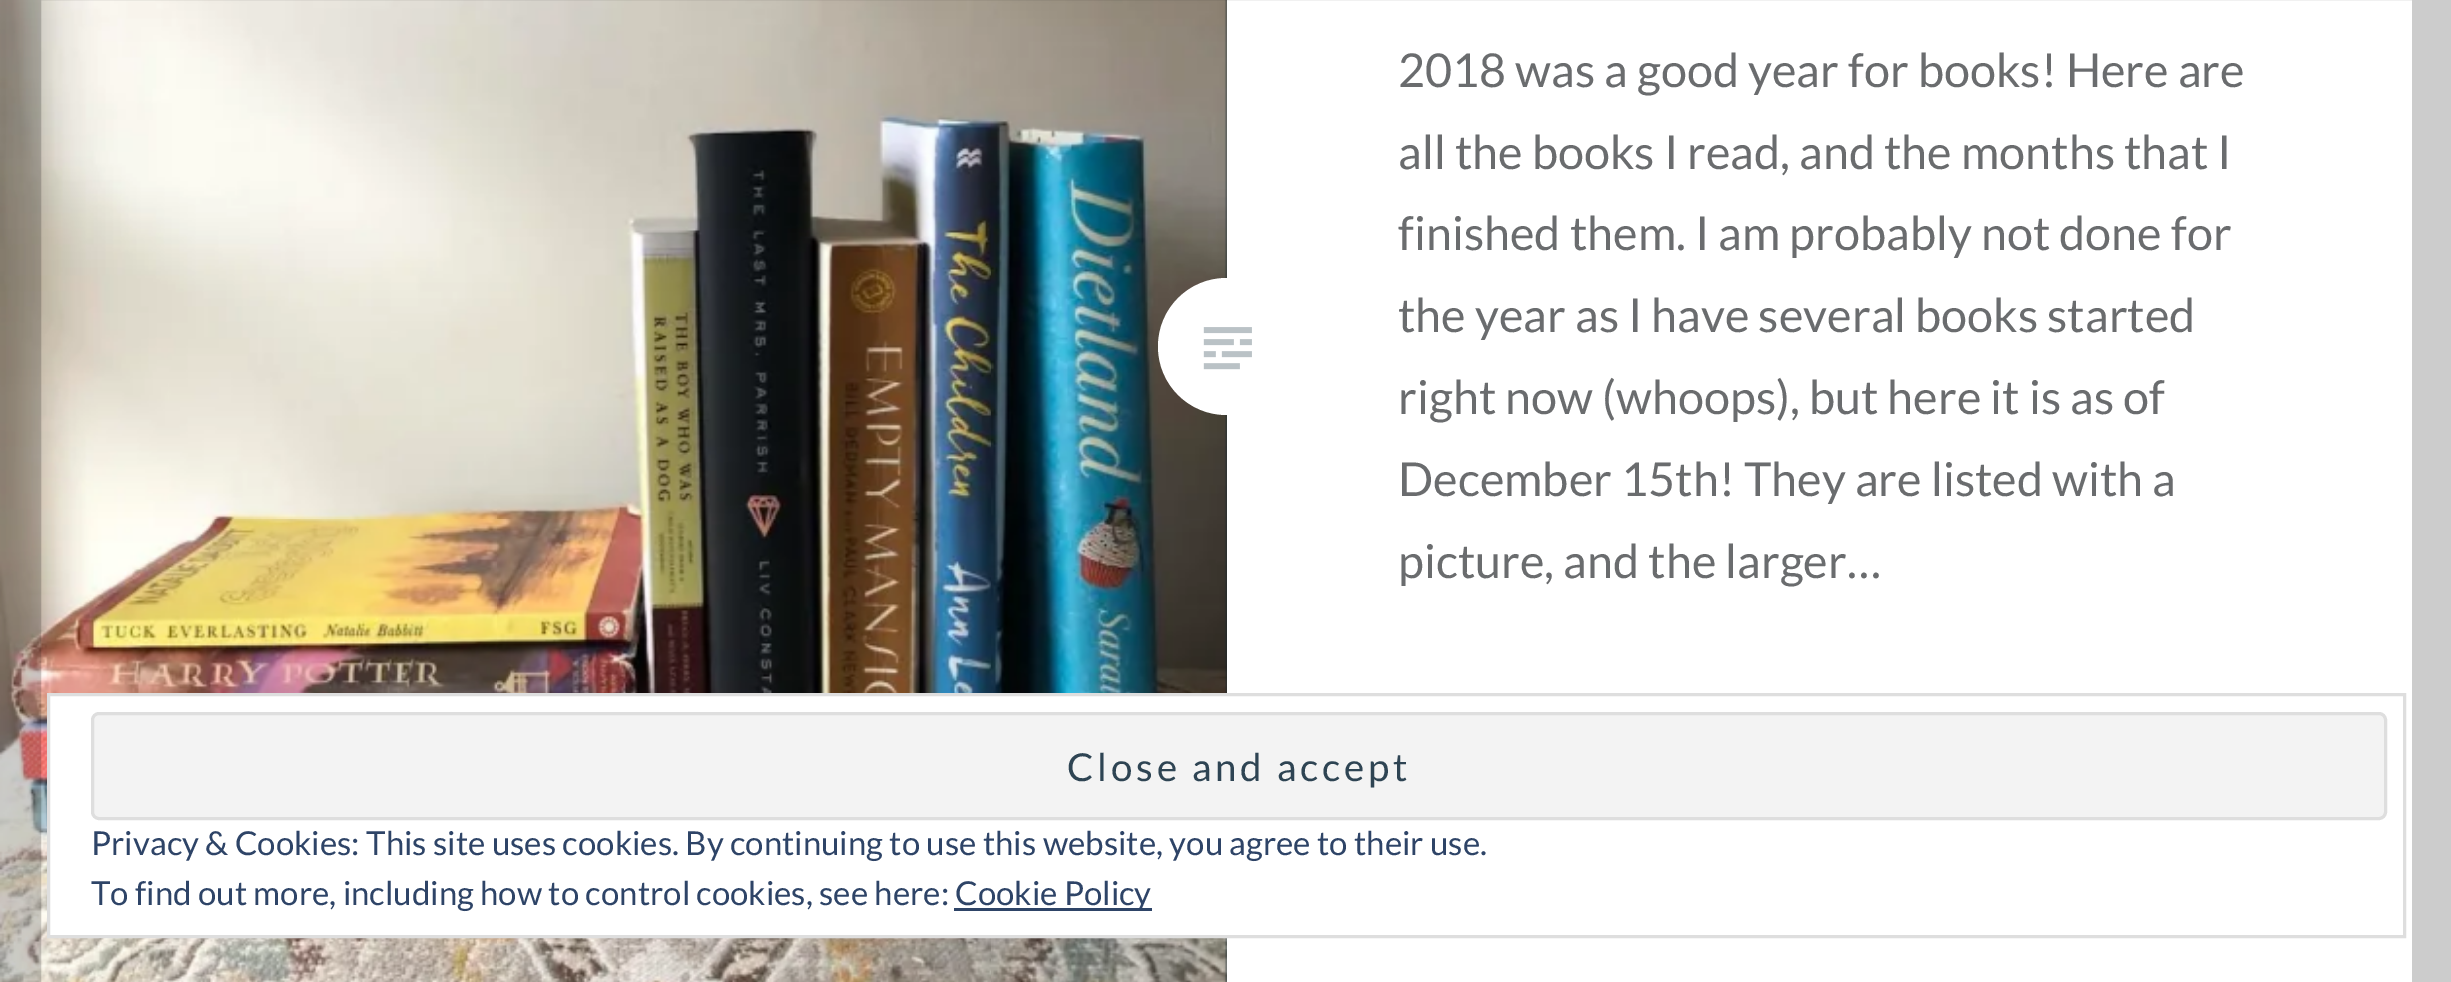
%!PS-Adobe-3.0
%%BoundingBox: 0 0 2451 982
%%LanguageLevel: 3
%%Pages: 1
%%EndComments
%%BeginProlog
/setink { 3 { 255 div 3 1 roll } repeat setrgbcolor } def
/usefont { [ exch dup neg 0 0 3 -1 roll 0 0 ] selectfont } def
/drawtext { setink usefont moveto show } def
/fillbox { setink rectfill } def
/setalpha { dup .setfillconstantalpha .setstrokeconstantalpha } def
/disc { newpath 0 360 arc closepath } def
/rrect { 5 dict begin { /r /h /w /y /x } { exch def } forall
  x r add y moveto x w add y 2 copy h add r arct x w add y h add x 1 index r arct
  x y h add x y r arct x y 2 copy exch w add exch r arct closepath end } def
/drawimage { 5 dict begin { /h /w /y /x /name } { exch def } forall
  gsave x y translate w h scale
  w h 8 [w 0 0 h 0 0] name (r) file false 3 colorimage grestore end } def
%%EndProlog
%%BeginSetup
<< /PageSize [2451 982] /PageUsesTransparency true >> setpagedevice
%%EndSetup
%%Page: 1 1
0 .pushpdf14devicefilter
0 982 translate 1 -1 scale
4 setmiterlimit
0 0 2451 982 255 255 255 fillbox
1224 0 3 982 18 38 47 fillbox
(assets/img1.rgb) 0 0 1227 982 drawimage
255 255 255 setink
1226.5 346.5 68.5 disc fill
0.2 setalpha
0 0 0 setink
41 setlinewidth
20.5 -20.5 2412 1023 rectstroke
1 setalpha
(2018 was a good year for books! Here are) 1398 87 /Lato-Regular 46.75 106 108 110 drawtext
(all the books I read, and the months that I) 1398 169 /Lato-Regular 46.75 106 108 110 drawtext
(finished them. I am probably not done for) 1398 250 /Lato-Regular 46.75 106 108 110 drawtext
(the year as I have several books started) 1398 332 /Lato-Regular 46.75 106 108 110 drawtext
(right now \(whoops\), but here it is as of) 1398 414 /Lato-Regular 46.75 106 108 110 drawtext
(December 15th! They are listed with a) 1398 496 /Lato-Regular 46.75 106 108 110 drawtext
(picture, and the larger…) 1398 578 /Lato-Regular 46.75 106 108 110 drawtext
(assets/img2.rgb) 1203 327 49 43 drawimage
50 696 1177 239 255 255 255 fillbox
222 222 222 setink
3 setlinewidth
48.5 694.5 2356 242 rectstroke
243 243 243 setink
92.5 713.5 2293 105 6.5 rrect gsave fill grestore
222 222 222 setink
stroke
/Lato-Regular 38.5 usefont
46 68 83 setink
1067 781 moveto 3.8 0 (Close and accept) ashow
(Privacy & Cookies: This site uses cookies. By continuing to use this website, you agree to their use.) 91 855 /Lato-Regular 33 46 68 103 drawtext
(To find out more, including how to control cookies, see here:) 91 905 /Lato-Regular 33 46 68 103 drawtext
954 908 198 3 46 68 103 fillbox
(Cookie Policy) 955 905 /Lato-Regular 33 46 68 103 drawtext
.poppdf14devicefilter showpage
%%EOF
